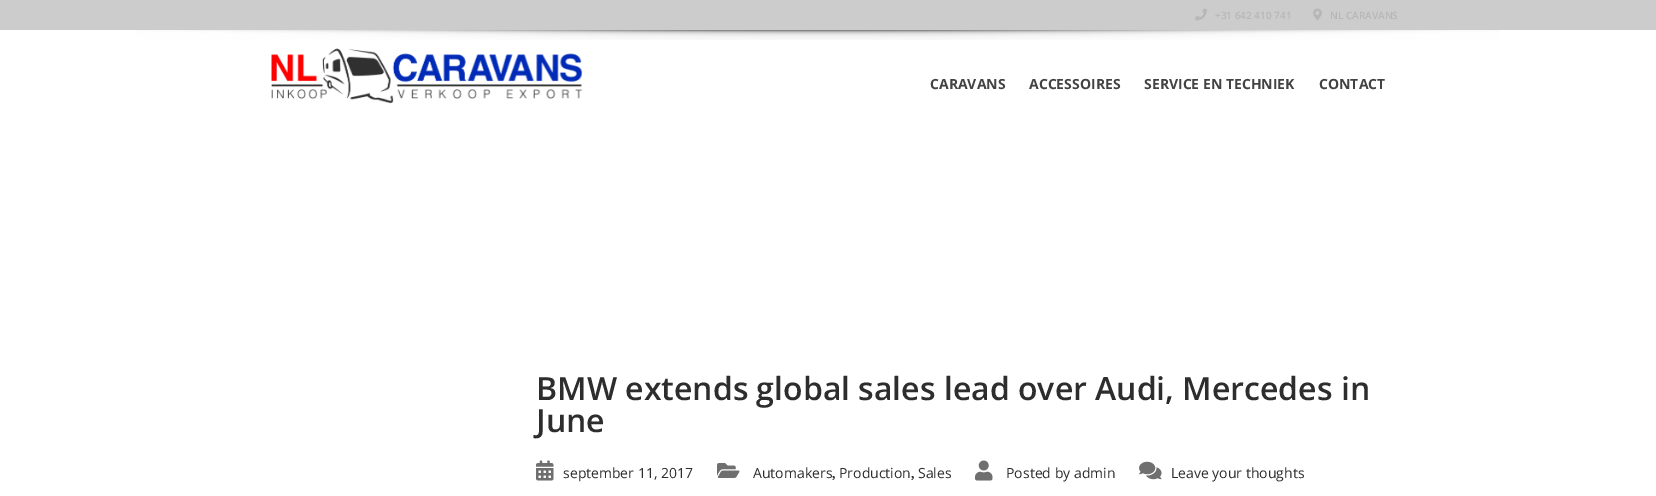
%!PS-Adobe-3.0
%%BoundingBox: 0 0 1656 496
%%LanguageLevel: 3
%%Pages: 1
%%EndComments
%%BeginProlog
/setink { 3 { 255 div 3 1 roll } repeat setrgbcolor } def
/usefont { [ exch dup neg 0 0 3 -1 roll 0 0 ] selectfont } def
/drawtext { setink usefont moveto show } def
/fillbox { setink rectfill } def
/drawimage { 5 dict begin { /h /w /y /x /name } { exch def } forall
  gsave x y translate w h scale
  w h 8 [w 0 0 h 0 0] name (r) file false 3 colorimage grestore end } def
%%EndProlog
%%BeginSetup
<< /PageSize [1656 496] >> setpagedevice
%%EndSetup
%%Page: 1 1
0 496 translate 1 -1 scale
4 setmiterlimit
0 0 1656 496 255 255 255 fillbox
0 0 1656 30 204 204 204 fillbox
(assets/img1.rgb) 1195 8 12 13 drawimage
(+31 642 410 741) 1215 19 /OpenSans-SemiBold 10 183 183 183 drawtext
(assets/img2.rgb) 1313 8 9 13 drawimage
(NL CARAVANS) 1330 19 /OpenSans-SemiBold 10 183 183 183 drawtext
(assets/img3.rgb) 136 30 1364 10 drawimage
(assets/img4.rgb) 271 48 312 56 drawimage
(CARAVANS) 930 89 /OpenSans-Bold 14 67 67 67 drawtext
(ACCESSOIRES) 1029 89 /OpenSans-Bold 14 67 67 67 drawtext
(SERVICE EN TECHNIEK) 1144 89 /OpenSans-Bold 14 67 67 67 drawtext
(CONTACT) 1319 89 /OpenSans-Bold 14 67 67 67 drawtext
(BMW extends global sales lead over Audi, Mercedes in) 536 400 /OpenSans-SemiBold 32 45 45 45 drawtext
(June) 536 432 /OpenSans-SemiBold 32 45 45 45 drawtext
(assets/img5.rgb) 536 460 18 21 drawimage
(september 11, 2017) 563 478 /OpenSans-Regular 14 45 45 45 drawtext
(assets/img6.rgb) 717 463 23 15 drawimage
(Automakers) 753 478 /OpenSans-Regular 14 45 45 45 drawtext
(,) 832 478 /LiberationSerif-Bold 14 45 45 45 drawtext
(Production) 839 478 /OpenSans-Regular 14 45 45 45 drawtext
(,) 911 478 /LiberationSerif-Bold 14 45 45 45 drawtext
(Sales) 918 478 /OpenSans-Regular 14 45 45 45 drawtext
(assets/img7.rgb) 975 460 18 21 drawimage
(Posted by admin) 1006 478 /OpenSans-Regular 14 45 45 45 drawtext
(assets/img8.rgb) 1139 461 23 19 drawimage
(Leave your thoughts) 1171 478 /OpenSans-Regular 14 45 45 45 drawtext
showpage
%%EOF
